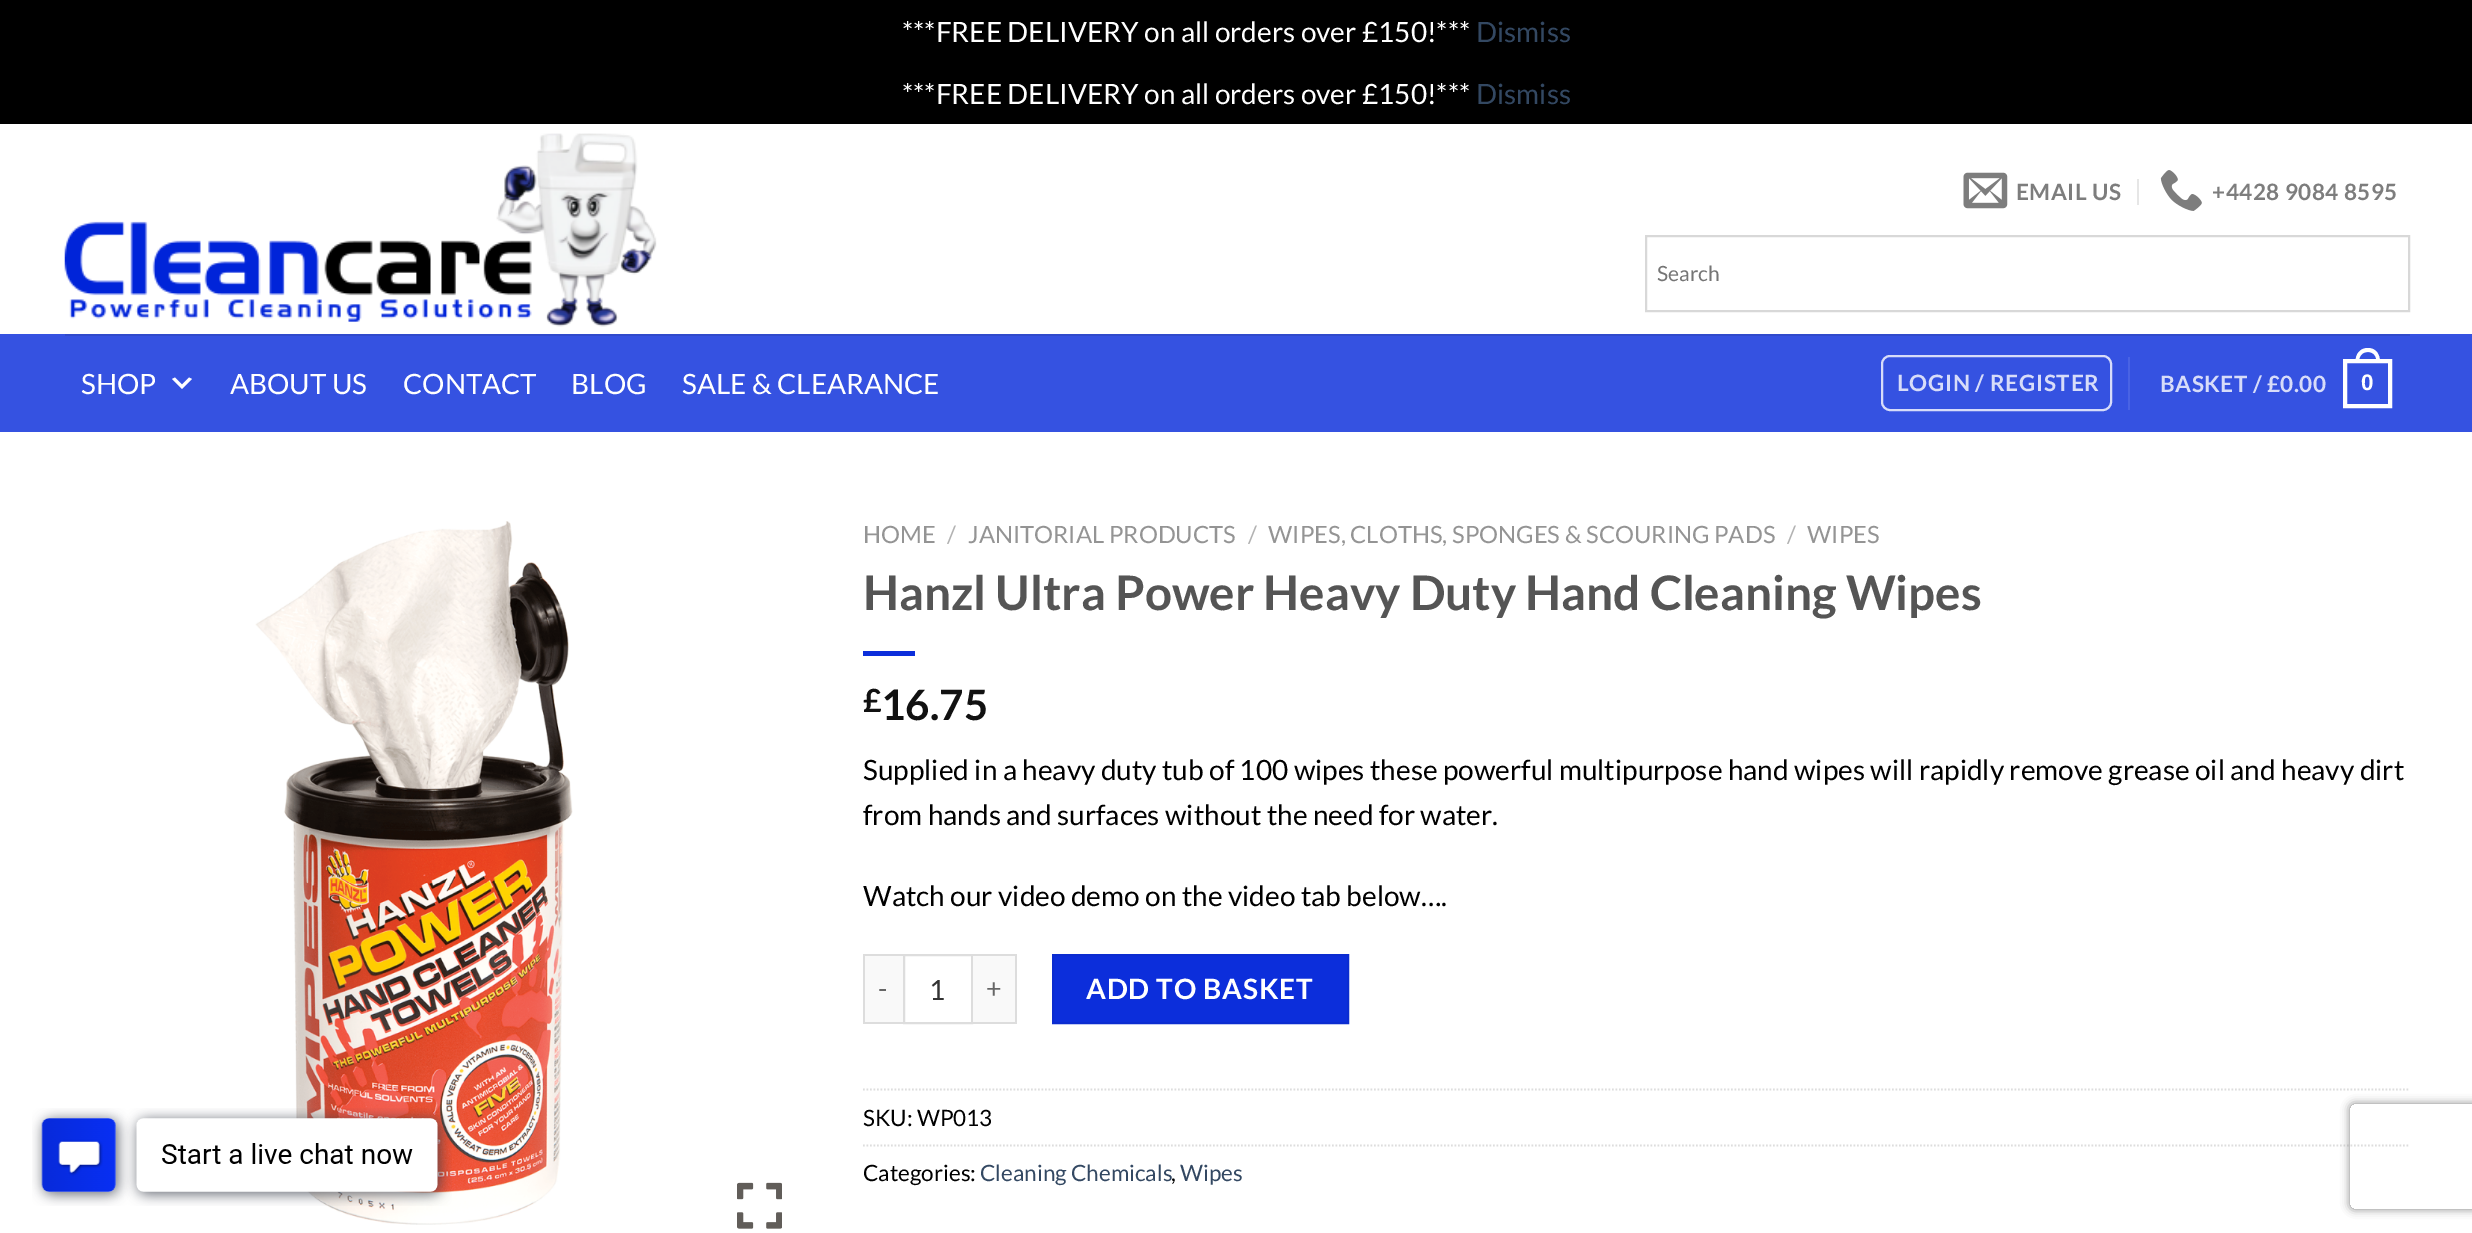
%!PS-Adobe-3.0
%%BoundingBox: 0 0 2472 1233
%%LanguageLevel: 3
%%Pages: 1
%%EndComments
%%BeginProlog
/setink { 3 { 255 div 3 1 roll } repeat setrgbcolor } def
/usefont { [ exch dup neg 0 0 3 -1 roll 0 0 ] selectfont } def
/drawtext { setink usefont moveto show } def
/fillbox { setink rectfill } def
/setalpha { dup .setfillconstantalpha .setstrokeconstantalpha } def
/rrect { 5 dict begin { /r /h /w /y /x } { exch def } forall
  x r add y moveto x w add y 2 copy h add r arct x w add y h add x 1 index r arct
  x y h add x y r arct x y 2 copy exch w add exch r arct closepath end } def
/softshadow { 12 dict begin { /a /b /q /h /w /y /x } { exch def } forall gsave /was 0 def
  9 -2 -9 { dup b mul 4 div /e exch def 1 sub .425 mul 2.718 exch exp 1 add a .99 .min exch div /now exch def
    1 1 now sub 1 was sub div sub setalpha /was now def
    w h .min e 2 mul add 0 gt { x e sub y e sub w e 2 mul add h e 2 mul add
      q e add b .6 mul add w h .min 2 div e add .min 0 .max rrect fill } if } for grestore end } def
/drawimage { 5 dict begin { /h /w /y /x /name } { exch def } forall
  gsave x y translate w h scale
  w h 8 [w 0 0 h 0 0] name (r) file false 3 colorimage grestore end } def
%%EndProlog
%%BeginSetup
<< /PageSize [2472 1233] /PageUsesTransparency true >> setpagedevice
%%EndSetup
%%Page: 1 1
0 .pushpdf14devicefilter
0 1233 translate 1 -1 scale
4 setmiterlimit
0 0 2472 1233 0 0 0 fillbox
(***FREE DELIVERY on all orders over £150!***) 902 42 /Lato-Regular 28 255 255 255 drawtext
(Dismiss) 1476 42 /Lato-Regular 28 51 72 98 drawtext
(***FREE DELIVERY on all orders over £150!***) 902 104 /Lato-Regular 28 255 255 255 drawtext
(Dismiss) 1476 104 /Lato-Regular 28 51 72 98 drawtext
0 124 2472 1109 255 255 255 fillbox
(assets/img1.rgb) 64 133 593 194 drawimage
(assets/img2.rgb) 1963 172 45 37 drawimage
/Lato-Bold 22.5 usefont
125 125 125 setink
2016 200 moveto 0.5 0 (EMAIL US) ashow
2137 179 2 26 230 230 230 fillbox
(assets/img3.rgb) 2160 170 42 41 drawimage
125 125 125 setink
2212 200 moveto 0.5 0 (+4428 9084 8595) ashow
216 216 216 setink
2 setlinewidth
1646 236 763 75 rectstroke
(Search) 1657 281 /Lato-Regular 21 117 117 117 drawtext
0 334 2472 98 53 82 225 fillbox
65 334 2345 2 48 74 203 fillbox
(SHOP) 81 394 /Lato-Regular 28 255 255 255 drawtext
175 377.5 moveto 182 384.5 lineto 189 377.5 lineto 192 379 lineto 182 389 lineto 172 379 lineto closepath fill
(ABOUT US) 230 394 /Lato-Regular 28 255 255 255 drawtext
(CONTACT) 403 394 /Lato-Regular 28 255 255 255 drawtext
(BLOG) 571 394 /Lato-Regular 28 255 255 255 drawtext
(SALE & CLEARANCE) 682 394 /Lato-Regular 28 255 255 255 drawtext
215 220 249 setink
1882 356 229 54 8 rrect stroke
/Lato-Bold 22.5 usefont
1897 391 moveto 0.7 0 (LOGIN / REGISTER) ashow
2128 357 2 53 73 99 228 fillbox
215 220 249 setink
2160 392 moveto 0.5 0 (BASKET / £0.00) ashow
255 255 255 setink
4 setlinewidth
2345 361 45 45 rectstroke
2368 348 moveto 2376 348 2380 354.5 2380 362 curveto 2355.5 362 lineto 2355.5 354.5 2359.5 348 2368 348 curveto closepath 2368 352 moveto 2374 352 2376.5 356.5 2376.5 362 curveto 2359 362 lineto 2359 356.5 2361.5 352 2368 352 curveto closepath eofill
/LiberationSans-Bold 22.5 usefont
2361 390 moveto 0.5 0 (0) ashow
(assets/img4.rgb) 255 521 318 704 drawimage
(assets/img5.rgb) 737 1182 45 47 drawimage
(HOME) 863 543 /Lato-Regular 23.8 148 148 148 drawtext
(/) 947 543 /Lato-Regular 23.8 178 178 178 drawtext
(JANITORIAL PRODUCTS) 968 543 /Lato-Regular 23.8 148 148 148 drawtext
(/) 1248 543 /Lato-Regular 23.8 178 178 178 drawtext
(WIPES, CLOTHS, SPONGES & SCOURING PADS) 1268 543 /Lato-Regular 23.8 148 148 148 drawtext
(/) 1787 543 /Lato-Regular 23.8 178 178 178 drawtext
(WIPES) 1807 543 /Lato-Regular 23.8 148 148 148 drawtext
(Hanzl Ultra Power Heavy Duty Hand Cleaning Wipes) 863 610 /Lato-Bold 47.6 85 85 85 drawtext
863 651 52 5 12 46 219 fillbox
(£) 863 712 /Lato-Bold 32 17 17 17 drawtext
(16.75) 881 720 /Lato-Bold 42 17 17 17 drawtext
(Supplied in a heavy duty tub of 100 wipes these powerful multipurpose hand wipes will rapidly remove grease oil and heavy dirt) 863 780 /Lato-Regular 28 0 0 0 drawtext
(from hands and surfaces without the need for water.) 863 825 /Lato-Regular 28 0 0 0 drawtext
(Watch our video demo on the video tab below….) 863 906 /Lato-Regular 28 0 0 0 drawtext
865 956 38 66 249 249 249 fillbox
863 954 40 2 221 221 221 fillbox
863 1022 40 2 221 221 221 fillbox
863 954 2 70 221 221 221 fillbox
/Lato-Regular 27 usefont
102 102 102 setink
878 998 moveto 1 0 (-) ashow
221 221 221 setink
2 setlinewidth
904 955 68 68 rectstroke
(1) 929 1000 /Lato-Regular 28 51 51 51 drawtext
973 956 42 66 249 249 249 fillbox
973 954 44 2 221 221 221 fillbox
1015 954 2 70 221 221 221 fillbox
973 1022 44 2 221 221 221 fillbox
/Lato-Regular 27 usefont
102 102 102 setink
986 998 moveto 1 0 (+) ashow
12 46 219 setink
1053 955 moveto 1348 955 lineto 1348 1023 lineto 1053 1023 lineto closepath gsave fill grestore
11 44 208 setink
stroke
/Lato-Bold 28 usefont
255 255 255 setink
1086 999 moveto 0.8 0 (ADD TO BASKET) ashow
221 221 221 setink
1.8 setlinewidth
[1.75 1.75] 0 setdash
863 1089.5 moveto 2410 1089.5 lineto stroke
(SKU: WP013) 863 1126 /Lato-Regular 22.5 0 0 0 drawtext
221 221 221 setink
863 1145.5 moveto 2410 1145.5 lineto stroke
(Categories:) 863 1181 /Lato-Regular 22.5 0 0 0 drawtext
(Cleaning Chemicals) 980 1181 /Lato-Regular 22.5 51 72 98 drawtext
(,) 1171 1181 /Lato-Regular 22.5 0 0 0 drawtext
(Wipes) 1180 1181 /Lato-Regular 22.5 51 72 98 drawtext
(assets/img6.rgb) 32 1108 420 98 drawimage
gsave
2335 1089 moveto 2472 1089 lineto 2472 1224 lineto 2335 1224 lineto closepath 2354 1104 moveto 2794 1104 lineto 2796 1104 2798 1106 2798 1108 curveto 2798 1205 lineto 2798 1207 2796 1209 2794 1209 curveto 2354 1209 lineto 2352 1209 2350 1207 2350 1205 curveto 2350 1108 lineto 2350 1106 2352 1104 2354 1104 curveto closepath eoclip newpath
128 128 128 setink
2350 1104 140 105 4 4.5 1 softshadow
grestore
.poppdf14devicefilter showpage
%%EOF
